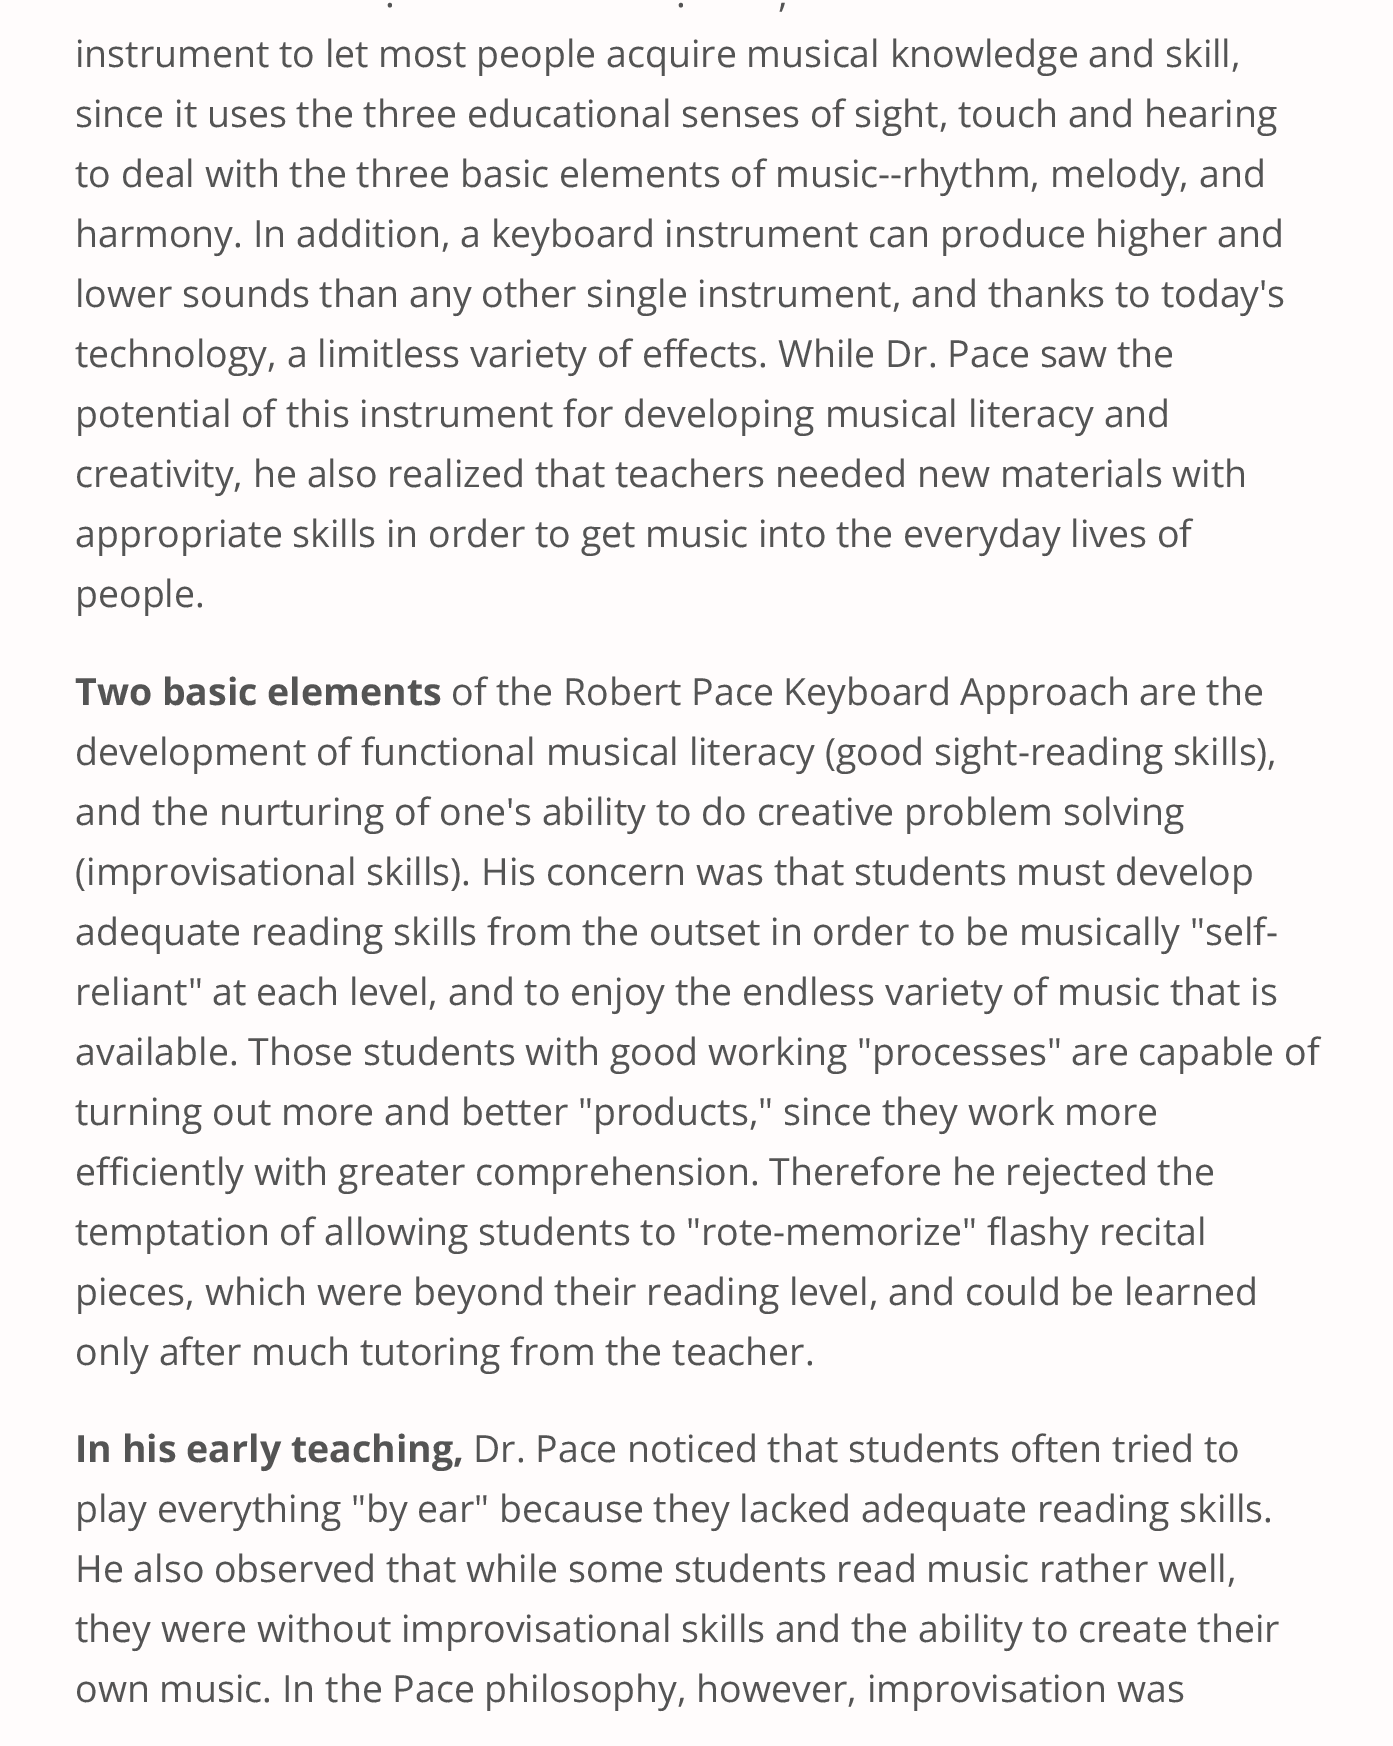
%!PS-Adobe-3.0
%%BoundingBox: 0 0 1393 1746
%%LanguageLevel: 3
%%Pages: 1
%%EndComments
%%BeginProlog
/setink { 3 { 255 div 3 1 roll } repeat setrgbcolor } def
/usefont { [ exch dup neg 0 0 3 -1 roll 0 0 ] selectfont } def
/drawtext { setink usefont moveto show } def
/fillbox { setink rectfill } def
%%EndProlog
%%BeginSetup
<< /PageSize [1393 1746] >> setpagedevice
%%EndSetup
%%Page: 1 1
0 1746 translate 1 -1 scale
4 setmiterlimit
0 0 1393 1746 255 252 252 fillbox
(.) 385 7 /OpenSans-Regular 37.5 84 84 84 drawtext
(.) 676 7 /OpenSans-Regular 37.5 84 84 84 drawtext
(,) 778 7 /OpenSans-Regular 37.5 84 84 84 drawtext
(instrument to let most people acquire musical knowledge and skill,) 75 67 /OpenSans-Regular 37.5 84 84 84 drawtext
(since it uses the three educational senses of sight, touch and hearing) 75 127 /OpenSans-Regular 37.5 84 84 84 drawtext
(to deal with the three basic elements of music--rhythm, melody, and) 75 187 /OpenSans-Regular 37.5 84 84 84 drawtext
(harmony. In addition, a keyboard instrument can produce higher and) 75 247 /OpenSans-Regular 37.5 84 84 84 drawtext
(lower sounds than any other single instrument, and thanks to today's) 75 307 /OpenSans-Regular 37.5 84 84 84 drawtext
(technology, a limitless variety of effects. While Dr. Pace saw the) 75 367 /OpenSans-Regular 37.5 84 84 84 drawtext
(potential of this instrument for developing musical literacy and) 75 427 /OpenSans-Regular 37.5 84 84 84 drawtext
(creativity, he also realized that teachers needed new materials with) 75 487 /OpenSans-Regular 37.5 84 84 84 drawtext
(appropriate skills in order to get music into the everyday lives of) 75 547 /OpenSans-Regular 37.5 84 84 84 drawtext
(people.) 75 607 /OpenSans-Regular 37.5 84 84 84 drawtext
(Two basic elements) 75 705 /OpenSans-Bold 37.5 84 84 84 drawtext
(of the Robert Pace Keyboard Approach are the) 451 705 /OpenSans-Regular 37.5 84 84 84 drawtext
(development of functional musical literacy \(good sight-reading skills\),) 75 765 /OpenSans-Regular 37.5 84 84 84 drawtext
(and the nurturing of one's ability to do creative problem solving) 75 825 /OpenSans-Regular 37.5 84 84 84 drawtext
(\(improvisational skills\). His concern was that students must develop) 75 885 /OpenSans-Regular 37.5 84 84 84 drawtext
(adequate reading skills from the outset in order to be musically "self-) 75 945 /OpenSans-Regular 37.5 84 84 84 drawtext
(reliant" at each level, and to enjoy the endless variety of music that is) 75 1005 /OpenSans-Regular 37.5 84 84 84 drawtext
(available. Those students with good working "processes" are capable of) 75 1065 /OpenSans-Regular 37.5 84 84 84 drawtext
(turning out more and better "products," since they work more) 75 1125 /OpenSans-Regular 37.5 84 84 84 drawtext
(efficiently with greater comprehension. Therefore he rejected the) 75 1185 /OpenSans-Regular 37.5 84 84 84 drawtext
(temptation of allowing students to "rote-memorize" flashy recital) 75 1245 /OpenSans-Regular 37.5 84 84 84 drawtext
(pieces, which were beyond their reading level, and could be learned) 75 1305 /OpenSans-Regular 37.5 84 84 84 drawtext
(only after much tutoring from the teacher.) 75 1365 /OpenSans-Regular 37.5 84 84 84 drawtext
(In his early teaching,) 75 1462 /OpenSans-Bold 37.5 84 84 84 drawtext
(Dr. Pace noticed that students often tried to) 473 1462 /OpenSans-Regular 37.5 84 84 84 drawtext
(play everything "by ear" because they lacked adequate reading skills.) 75 1522 /OpenSans-Regular 37.5 84 84 84 drawtext
(He also observed that while some students read music rather well,) 75 1582 /OpenSans-Regular 37.5 84 84 84 drawtext
(they were without improvisational skills and the ability to create their) 75 1642 /OpenSans-Regular 37.5 84 84 84 drawtext
(own music. In the Pace philosophy, however, improvisation was) 75 1702 /OpenSans-Regular 37.5 84 84 84 drawtext
showpage
%%EOF
